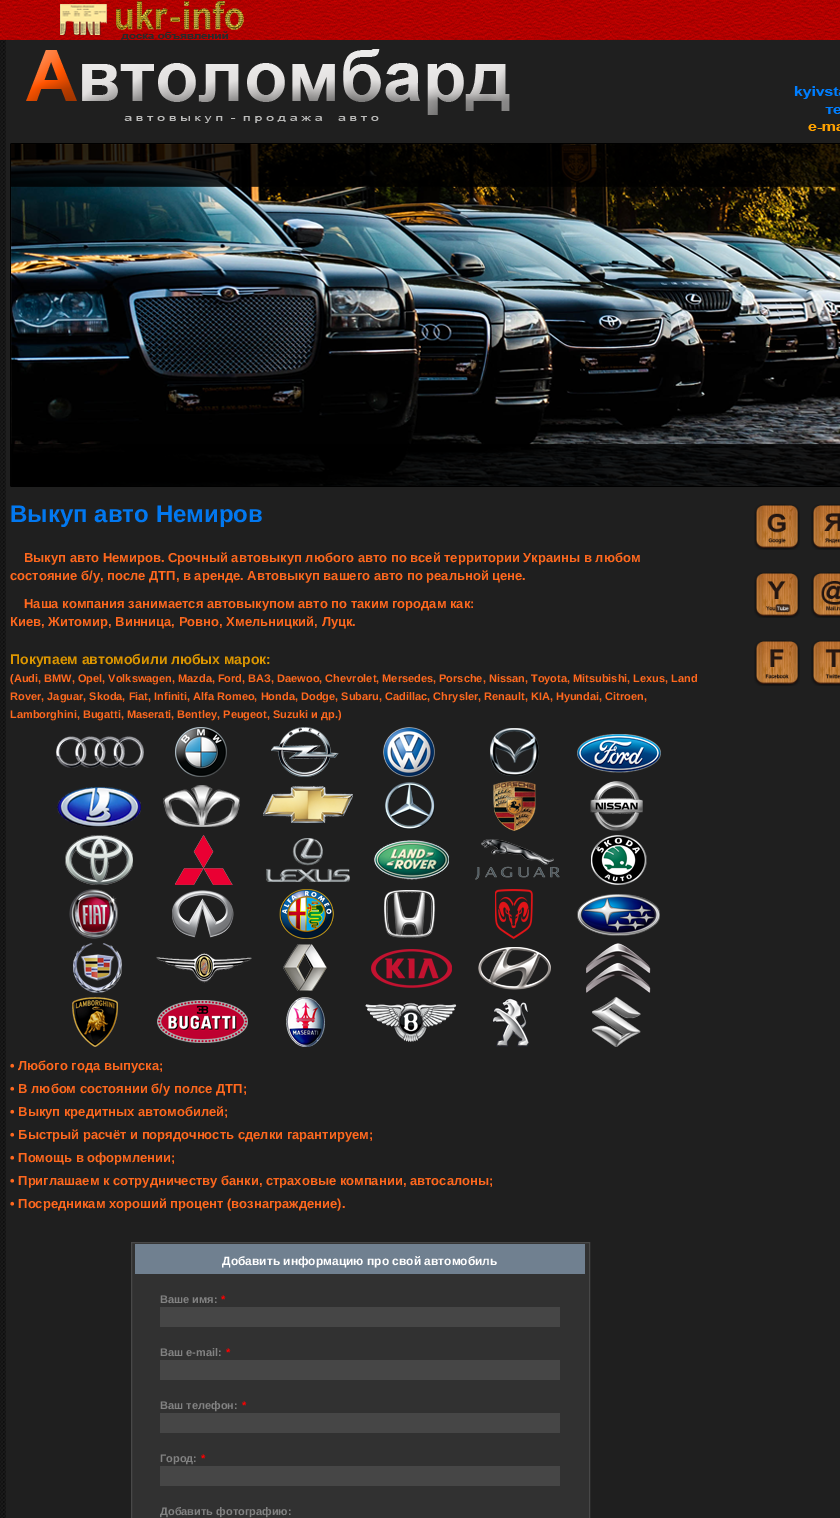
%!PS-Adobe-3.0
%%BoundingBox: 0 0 840 1518
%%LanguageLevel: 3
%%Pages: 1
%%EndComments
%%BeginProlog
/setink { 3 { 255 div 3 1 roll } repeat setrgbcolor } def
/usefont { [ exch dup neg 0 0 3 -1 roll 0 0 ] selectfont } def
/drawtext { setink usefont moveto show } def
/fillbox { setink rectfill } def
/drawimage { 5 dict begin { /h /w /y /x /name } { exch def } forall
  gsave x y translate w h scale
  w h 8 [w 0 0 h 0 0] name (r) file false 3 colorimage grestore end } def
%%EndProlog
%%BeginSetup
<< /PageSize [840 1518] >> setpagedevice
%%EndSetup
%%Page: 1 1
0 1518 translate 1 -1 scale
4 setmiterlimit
0 0 840 1518 255 255 255 fillbox
(assets/img1.rgb) 0 40 6 1478 drawimage
(assets/img2.rgb) 0 0 840 40 drawimage
(assets/img3.rgb) 60 1 184 39 drawimage
(assets/img4.rgb) 0 40 840 100 drawimage
(assets/img5.rgb) 0 140 840 350 drawimage
(assets/img6.rgb) 0 490 840 1028 drawimage
(Выкуп авто Немиров) 10 522 /LiberationSans-Bold 24 2 120 240 drawtext
(Выкуп авто Немиров. Срочный автовыкуп любого авто по всей территории Украины в любом) 24 562 /LiberationSans-Bold 13 255 104 30 drawtext
(состояние б/у, после ДТП, в аренде. Автовыкуп вашего авто по реальной цене.) 10 580 /LiberationSans-Bold 13 255 104 30 drawtext
(Наша компания занимается автовыкупом авто по таким городам как:) 24 608 /LiberationSans-Bold 13 255 104 30 drawtext
(Киев, Житомир, Винница, Ровно, Хмельницкий, Луцк.) 10 626 /LiberationSans-Bold 13 255 104 30 drawtext
(Покупаем автомобили любых марок:) 10 664 /LiberationSans-Bold 14 220 150 0 drawtext
(\(Audi, BMW, Opel, Volkswagen, Mazda, Ford, ВАЗ, Daewoo, Chevrolet, Mersedes, Porsche, Nissan, Toyota, Mitsubishi, Lexus, Land) 10 682 /LiberationSans-Bold 11 255 104 30 drawtext
(Rover, Jaguar, Skoda, Fiat, Infiniti, Alfa Romeo, Honda, Dodge, Subaru, Cadillac, Chrysler, Renault, KIA, Hyundai, Citroen,) 10 700 /LiberationSans-Bold 11 255 104 30 drawtext
(Lamborghini, Bugatti, Maserati, Bentley, Peugeot, Suzuki и др.\)) 10 718 /LiberationSans-Bold 11 255 104 30 drawtext
(assets/img7.rgb) 56 736 88 32 drawimage
(assets/img8.rgb) 175 727 52 50 drawimage
(assets/img9.rgb) 271 727 68 50 drawimage
(assets/img10.rgb) 383 727 52 50 drawimage
(assets/img11.rgb) 490 728 49 48 drawimage
(assets/img12.rgb) 577 734 84 39 drawimage
(assets/img13.rgb) 57 787 84 40 drawimage
(assets/img14.rgb) 163 785 77 42 drawimage
(assets/img15.rgb) 263 786 90 37 drawimage
(assets/img16.rgb) 385 782 50 48 drawimage
(assets/img17.rgb) 493 781 43 50 drawimage
(assets/img18.rgb) 590 781 53 50 drawimage
(assets/img19.rgb) 65 835 68 50 drawimage
(assets/img20.rgb) 175 835 58 50 drawimage
(assets/img21.rgb) 266 838 84 44 drawimage
(assets/img22.rgb) 374 840 75 40 drawimage
(assets/img23.rgb) 475 839 85 41 drawimage
(assets/img24.rgb) 591 835 56 50 drawimage
(assets/img25.rgb) 69 889 49 50 drawimage
(assets/img26.rgb) 172 890 62 48 drawimage
(assets/img27.rgb) 279 889 55 50 drawimage
(assets/img28.rgb) 384 890 51 48 drawimage
(assets/img29.rgb) 495 889 38 50 drawimage
(assets/img30.rgb) 577 894 83 42 drawimage
(assets/img31.rgb) 73 943 49 50 drawimage
(assets/img32.rgb) 156 953 96 30 drawimage
(assets/img33.rgb) 283 944 44 47 drawimage
(assets/img34.rgb) 371 949 81 39 drawimage
(assets/img35.rgb) 478 947 73 43 drawimage
(assets/img36.rgb) 586 943 65 50 drawimage
(assets/img37.rgb) 72 997 46 50 drawimage
(assets/img38.rgb) 157 1000 91 43 drawimage
(assets/img39.rgb) 286 997 39 50 drawimage
(assets/img40.rgb) 365 1002 92 40 drawimage
(assets/img41.rgb) 492 998 38 49 drawimage
(assets/img42.rgb) 592 997 49 50 drawimage
(• Любого года выпуска;) 10 1070 /LiberationSans-Bold 13 255 104 30 drawtext
(• В любом состоянии б/у полсе ДТП;) 10 1093 /LiberationSans-Bold 13 255 104 30 drawtext
(• Выкуп кредитных автомобилей;) 10 1116 /LiberationSans-Bold 13 255 104 30 drawtext
(• Быстрый расчёт и порядочность сделки гарантируем;) 10 1139 /LiberationSans-Bold 13 255 104 30 drawtext
(• Помощь в оформлении;) 10 1162 /LiberationSans-Bold 13 255 104 30 drawtext
(• Приглашаем к сотрудничеству банки, страховые компании, автосалоны;) 10 1185 /LiberationSans-Bold 13 255 104 30 drawtext
(• Посредникам хороший процент \(вознаграждение\).) 10 1208 /LiberationSans-Bold 13 255 104 30 drawtext
49 49 49 setink
131.5 1242.5 moveto 589.5 1242.5 lineto 589.5 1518.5 lineto 131.5 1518.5 lineto closepath gsave fill grestore
72 72 72 setink
stroke
135 1244 450 30 112 128 144 fillbox
(Добавить информацию про свой автомобиль) 222 1265 /LiberationSans-Bold 12 255 255 255 drawtext
(Ваше имя:) 160 1303 /LiberationSans-Bold 11 130 130 130 drawtext
(*) 221 1303 /LiberationSans-Bold 11 255 0 0 drawtext
160 1307 400 20 70 70 70 fillbox
(Ваш e-mail:) 160 1356 /LiberationSans-Bold 11 130 130 130 drawtext
(*) 226 1356 /LiberationSans-Bold 11 255 0 0 drawtext
160 1360 400 20 70 70 70 fillbox
(Ваш телефон:) 160 1409 /LiberationSans-Bold 11 130 130 130 drawtext
(*) 242 1409 /LiberationSans-Bold 11 255 0 0 drawtext
160 1413 400 20 70 70 70 fillbox
(Город:) 160 1462 /LiberationSans-Bold 11 130 130 130 drawtext
(*) 201 1462 /LiberationSans-Bold 11 255 0 0 drawtext
160 1466 400 20 70 70 70 fillbox
(Добавить фотографию:) 160 1515 /LiberationSans-Bold 11 130 130 130 drawtext
(assets/img43.rgb) 754 504 46 46 drawimage
(assets/img44.rgb) 811 504 29 46 drawimage
(assets/img45.rgb) 754 572 46 46 drawimage
(assets/img46.rgb) 811 572 29 46 drawimage
(assets/img47.rgb) 754 640 46 46 drawimage
(assets/img48.rgb) 811 640 29 46 drawimage
showpage
%%EOF
